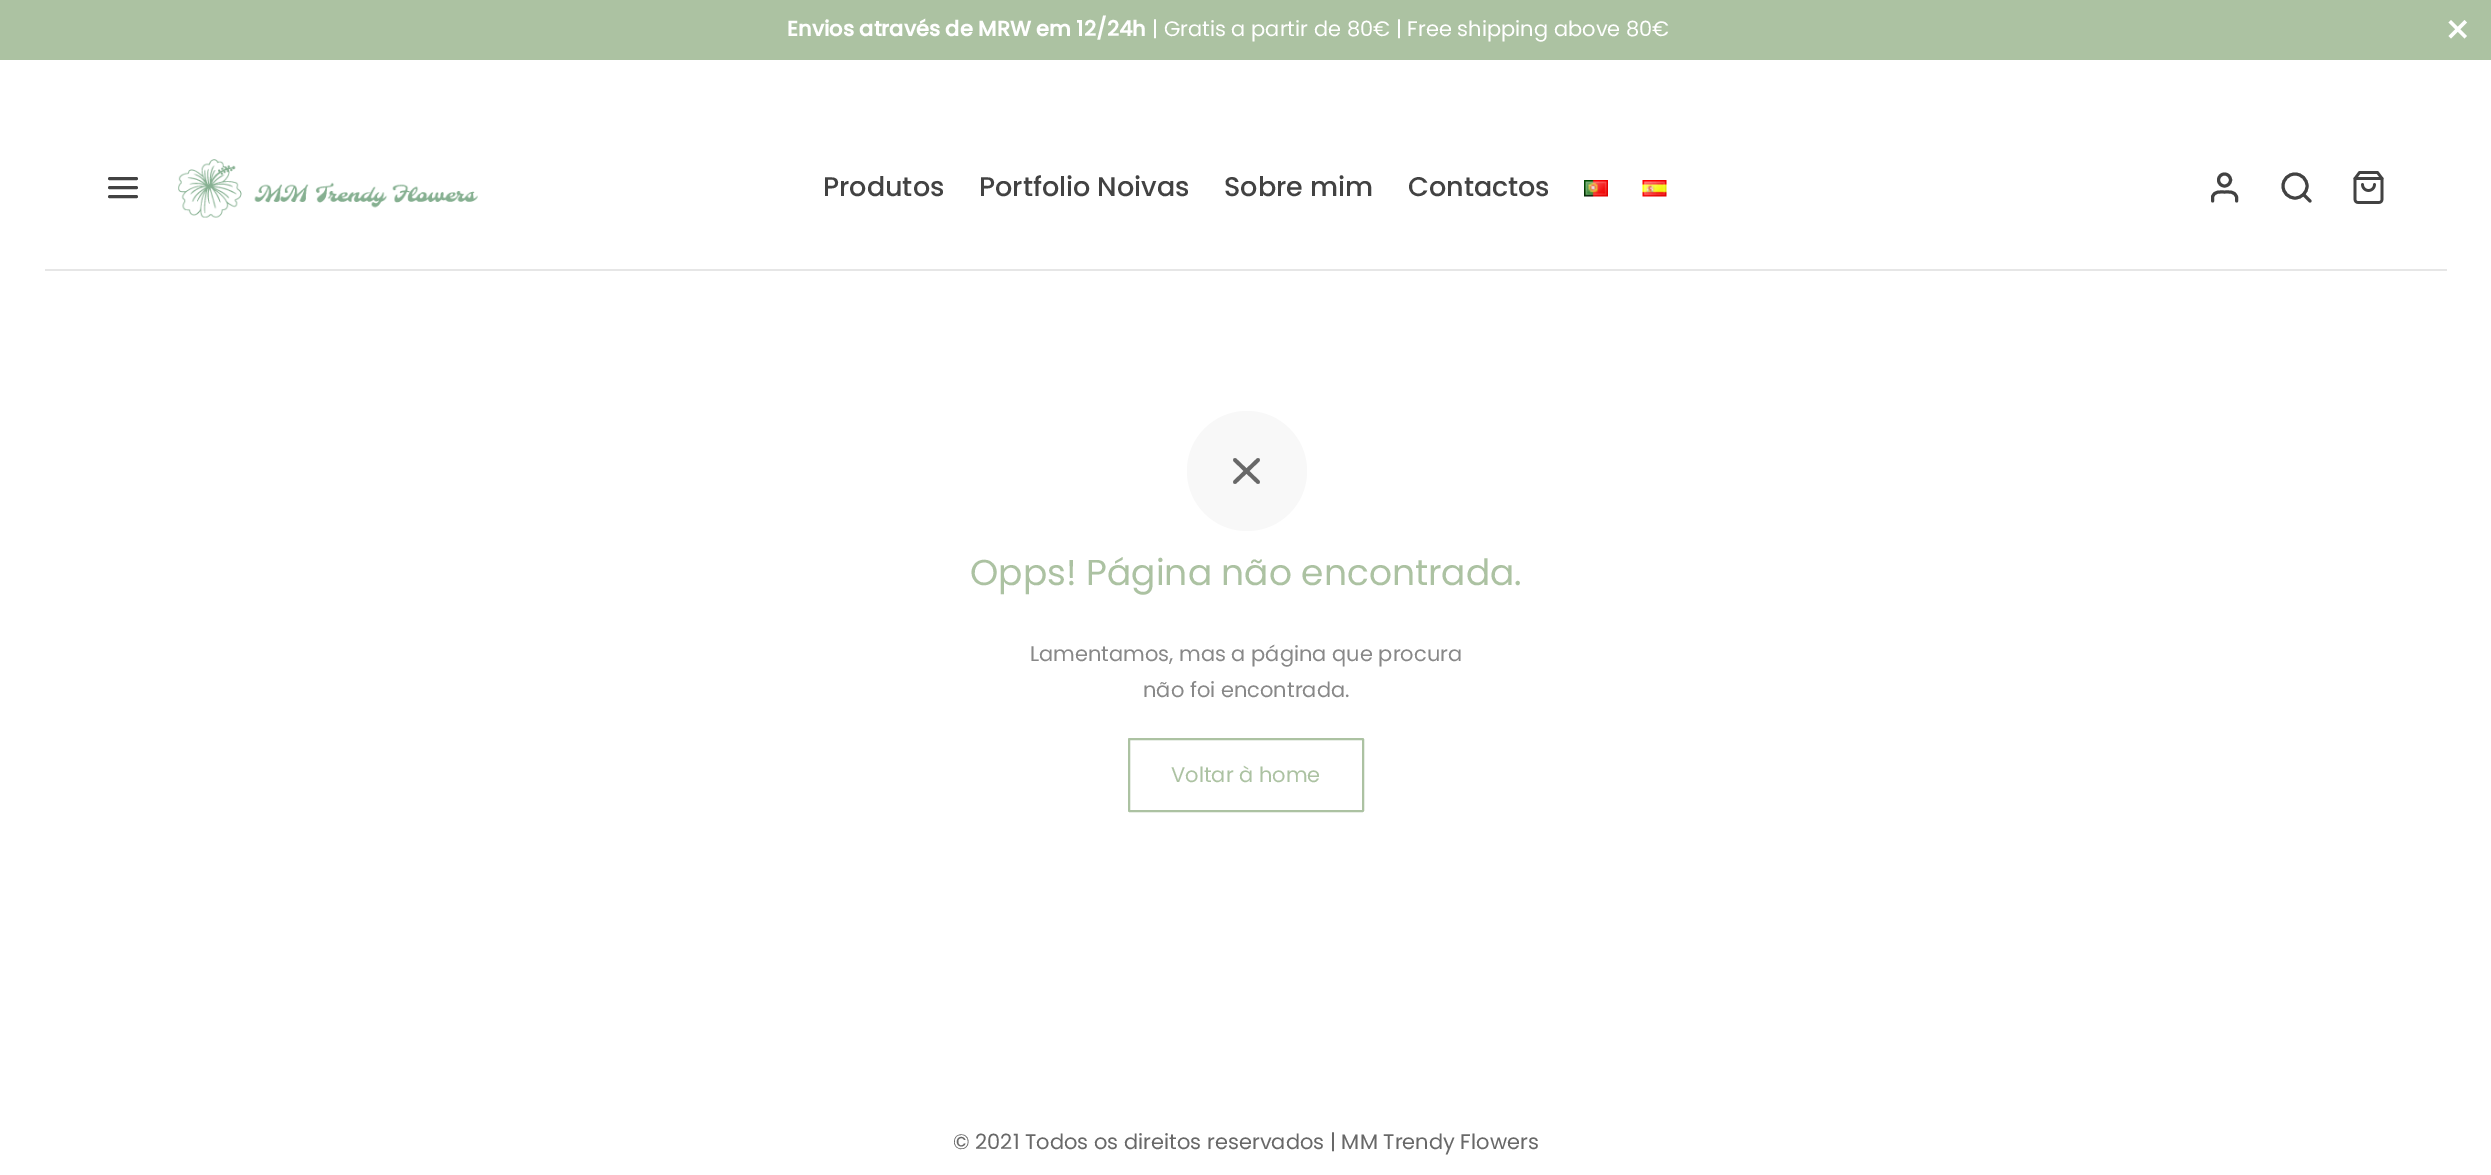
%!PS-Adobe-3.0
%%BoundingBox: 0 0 2491 1175
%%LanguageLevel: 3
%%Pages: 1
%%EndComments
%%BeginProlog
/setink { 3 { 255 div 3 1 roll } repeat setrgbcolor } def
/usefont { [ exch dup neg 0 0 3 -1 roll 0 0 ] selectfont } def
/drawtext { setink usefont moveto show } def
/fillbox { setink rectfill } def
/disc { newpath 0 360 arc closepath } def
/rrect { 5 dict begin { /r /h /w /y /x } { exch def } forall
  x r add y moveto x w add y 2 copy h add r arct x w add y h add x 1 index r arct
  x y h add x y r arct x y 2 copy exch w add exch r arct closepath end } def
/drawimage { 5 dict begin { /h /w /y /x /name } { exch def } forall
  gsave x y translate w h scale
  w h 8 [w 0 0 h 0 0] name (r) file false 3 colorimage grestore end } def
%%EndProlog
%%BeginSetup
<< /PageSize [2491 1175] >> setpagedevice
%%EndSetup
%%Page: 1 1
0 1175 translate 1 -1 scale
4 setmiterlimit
0 0 2491 1175 255 255 255 fillbox
0 0 2491 60 172 194 162 fillbox
(Envios através de MRW em 12/24h) 787 36 /Poppins-Bold 21 255 255 255 drawtext
(| Gratis a partir de 80€ | Free shipping above 80€) 1152 36 /Poppins-Regular 21 255 255 255 drawtext
2451 20 moveto 2467 36 lineto 2464.5 38.5 lineto 2448.5 22.5 lineto closepath fill
2448.5 36 moveto 2464.5 20 lineto 2467 22.5 lineto 2451 38.5 lineto closepath fill
66 66 66 setink
3 setlinewidth
1 setlinecap
1 setlinejoin
109.5 187.5 moveto 136.5 187.5 lineto 109.5 178.5 moveto 136.5 178.5 lineto 109.5 196.5 moveto 136.5 196.5 lineto stroke
(assets/img1.rgb) 178 159 300 59 drawimage
(Produtos) 823 196 /Poppins-Medium 27 66 66 66 drawtext
(Portfolio Noivas) 979 196 /Poppins-Medium 27 66 66 66 drawtext
(Sobre mim) 1224 196 /Poppins-Medium 27 66 66 66 drawtext
(Contactos) 1408 196 /Poppins-Medium 27 66 66 66 drawtext
(assets/img2.rgb) 1584 180 24 17 drawimage
(assets/img3.rgb) 1642 180 25 17 drawimage
2236.5 201 moveto 2236.5 197 lineto 2235 191 2229 192 2224.5 192 curveto 2220 192 2214 191 2212.5 197 curveto 2212.5 201 lineto stroke
0 setlinecap
0 setlinejoin
2224.5 180 6 disc stroke
2295 186 12 disc stroke
1 setlinecap
1 setlinejoin
2310 201 moveto 2303.5 194.5 lineto stroke
(assets/img4.rgb) 2353 171 31 33 drawimage
45 269 2402 2 230 230 230 fillbox
248 248 248 setink
1247 471 60 disc fill
104 104 104 setink
3.8 setlinewidth
1258 460 moveto 1235 482 lineto 1235 460 moveto 1258 482 lineto stroke
(Opps! Página não encontrada.) 970 585 /Poppins-Regular 36 172 194 162 drawtext
(Lamentamos, mas a página que procura) 1030 661 /Poppins-Regular 21 136 136 136 drawtext
(não foi encontrada.) 1143 697 /Poppins-Regular 21 136 136 136 drawtext
172 194 162 setink
2 setlinewidth
0 setlinecap
0 setlinejoin
1129 739 234 72 0.5 rrect stroke
(Voltar à home) 1171 782 /Poppins-Regular 21 172 194 162 drawtext
(© 2021 Todos os direitos reservados | MM Trendy Flowers) 953 1149 /Poppins-Regular 21 104 104 104 drawtext
showpage
%%EOF
